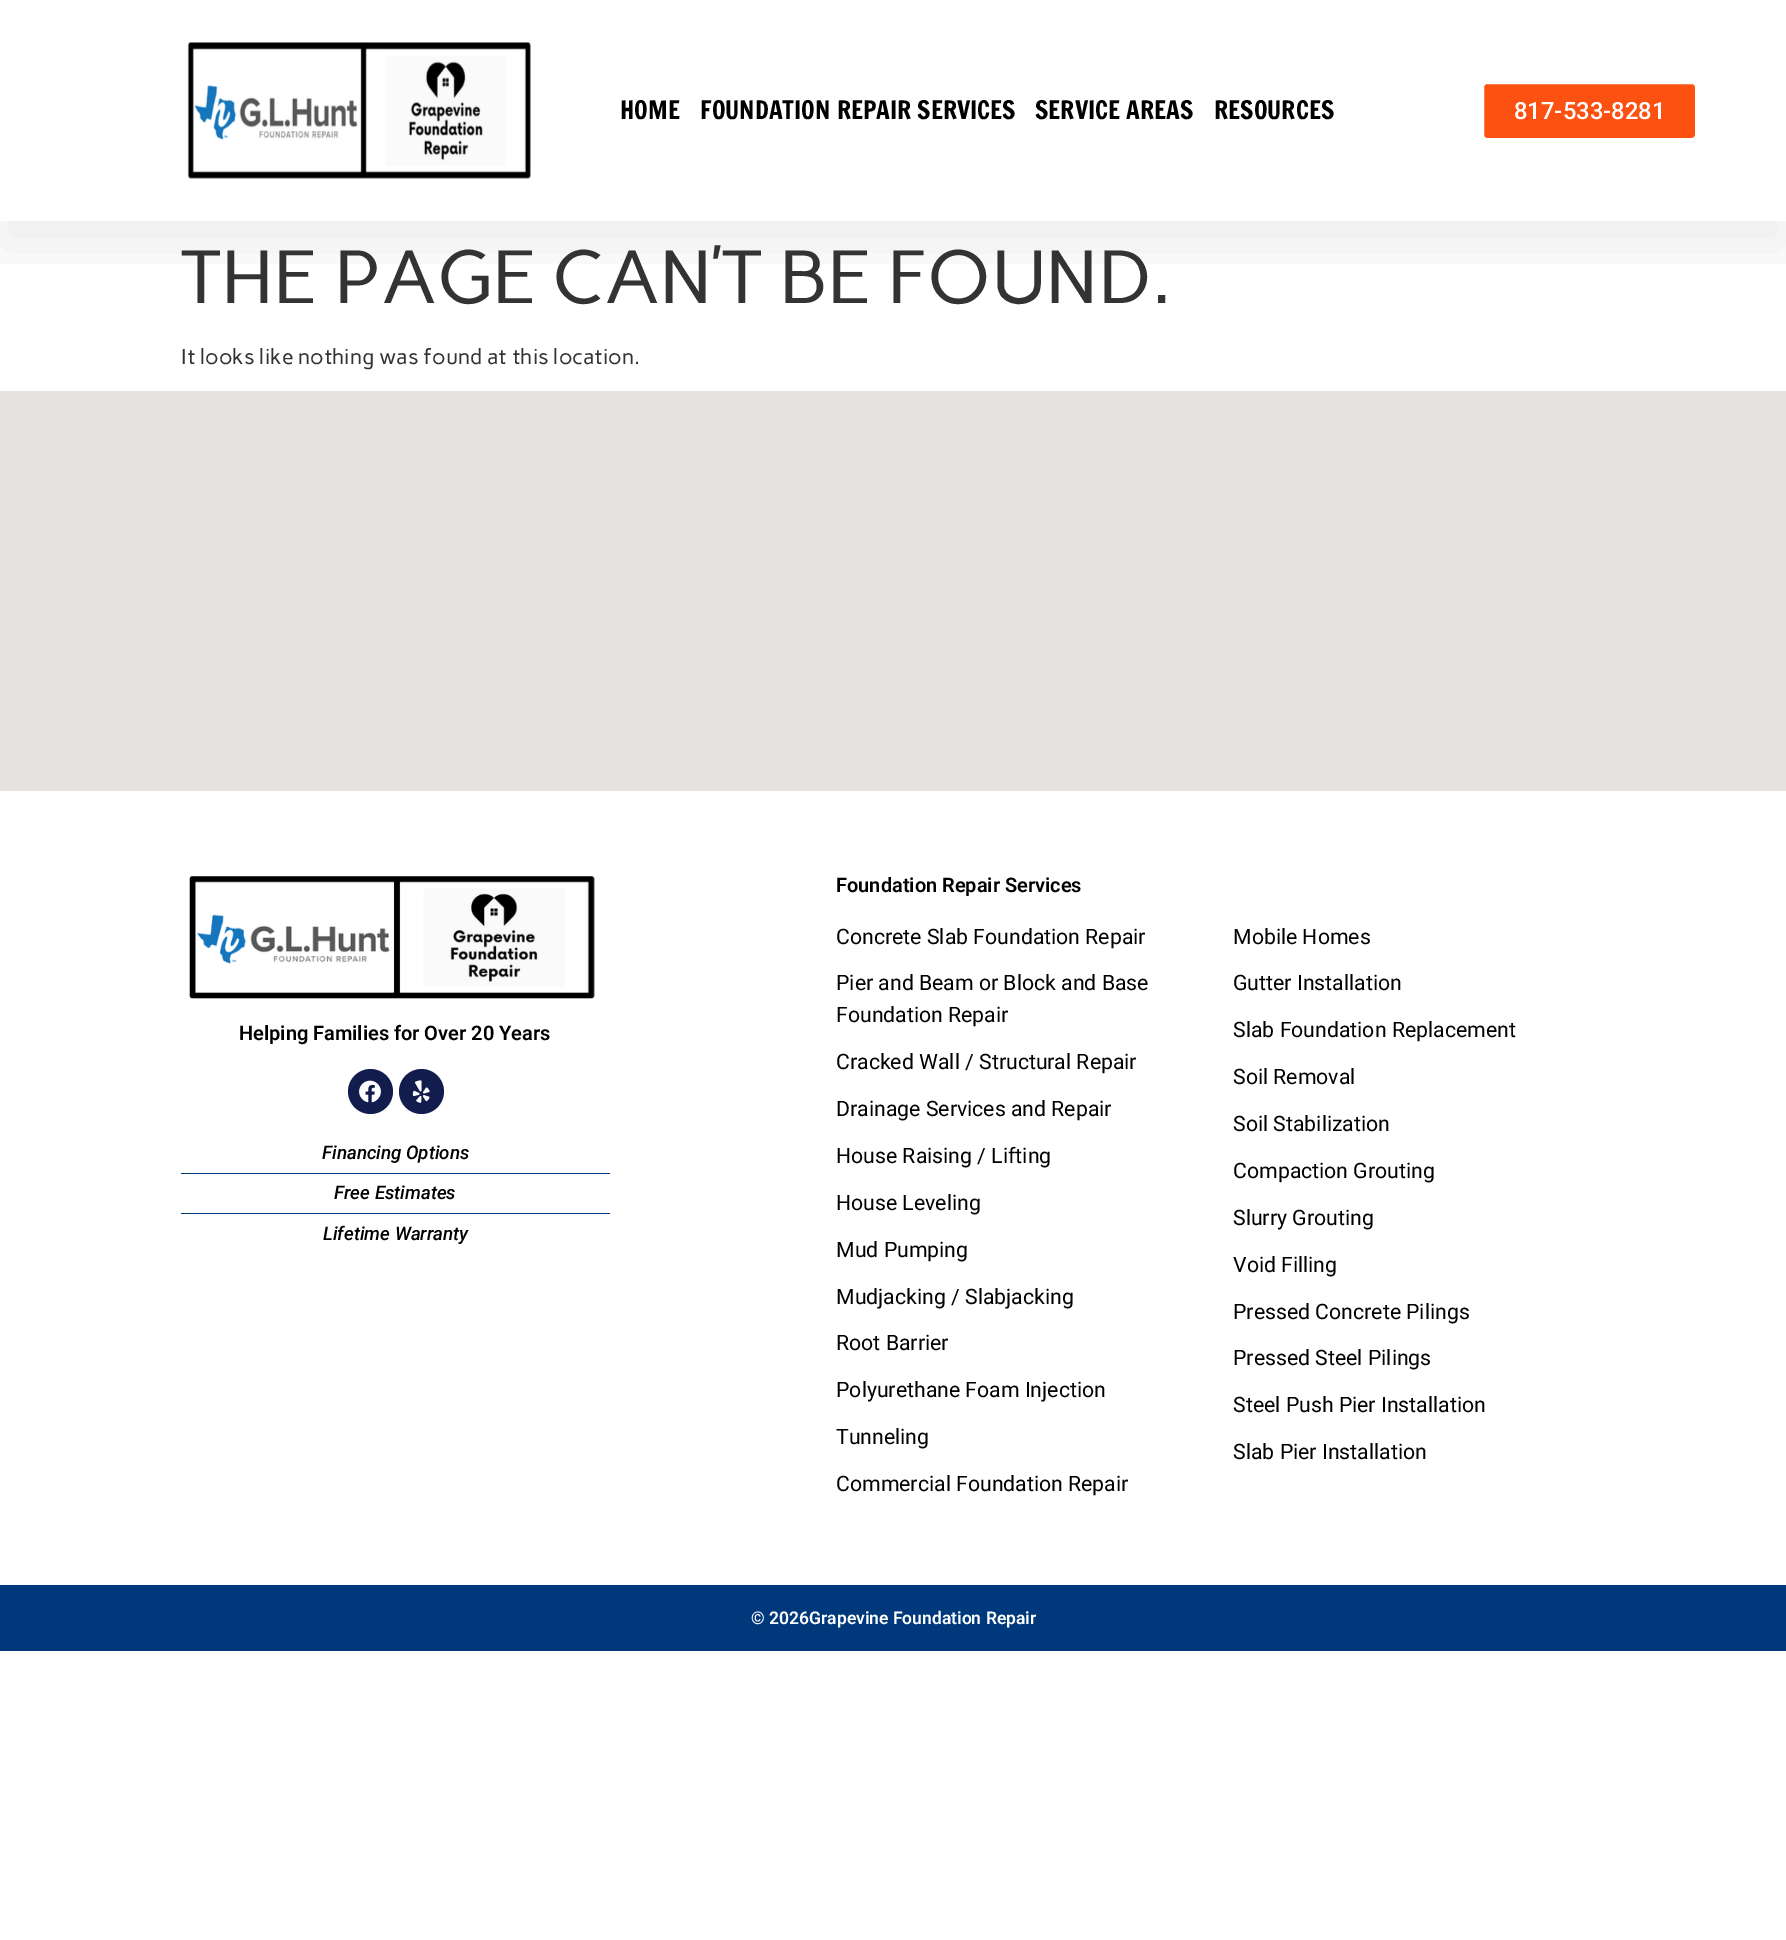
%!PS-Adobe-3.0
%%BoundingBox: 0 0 1786 1940
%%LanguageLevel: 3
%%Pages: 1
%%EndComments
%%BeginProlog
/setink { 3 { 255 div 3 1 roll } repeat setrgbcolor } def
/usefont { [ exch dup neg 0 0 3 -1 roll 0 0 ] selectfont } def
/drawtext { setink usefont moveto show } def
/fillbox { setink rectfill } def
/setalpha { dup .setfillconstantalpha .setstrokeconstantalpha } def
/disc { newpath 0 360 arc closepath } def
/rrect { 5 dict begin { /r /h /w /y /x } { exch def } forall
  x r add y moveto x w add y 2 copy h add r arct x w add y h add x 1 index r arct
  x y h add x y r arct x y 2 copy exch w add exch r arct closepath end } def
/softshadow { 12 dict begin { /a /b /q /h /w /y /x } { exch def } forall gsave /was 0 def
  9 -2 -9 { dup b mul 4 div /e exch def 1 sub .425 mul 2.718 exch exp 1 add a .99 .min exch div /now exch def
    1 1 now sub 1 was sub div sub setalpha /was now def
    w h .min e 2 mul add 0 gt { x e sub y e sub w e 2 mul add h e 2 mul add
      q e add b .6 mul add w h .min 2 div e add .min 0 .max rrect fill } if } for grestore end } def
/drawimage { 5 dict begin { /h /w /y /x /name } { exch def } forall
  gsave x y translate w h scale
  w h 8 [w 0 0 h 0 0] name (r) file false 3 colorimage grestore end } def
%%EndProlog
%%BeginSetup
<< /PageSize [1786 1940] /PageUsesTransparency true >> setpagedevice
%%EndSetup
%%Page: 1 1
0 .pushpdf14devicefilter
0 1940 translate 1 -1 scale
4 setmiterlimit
0 0 1786 1940 255 255 255 fillbox
gsave
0 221 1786 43 rectclip
0 0 0 setink
0 25 1786 221 0 31 0.07 softshadow
grestore
(assets/img1.rgb) 187 42 344 137 drawimage
(HOME) 620 119 /FrancoisOne-Regular 25 0 0 0 drawtext
(FOUNDATION REPAIR SERVICES) 700 119 /FrancoisOne-Regular 25 0 0 0 drawtext
(SERVICE AREAS) 1035 119 /FrancoisOne-Regular 25 0 0 0 drawtext
(RESOURCES) 1214 119 /FrancoisOne-Regular 25 0 0 0 drawtext
252 81 16 setink
1483.5 83.5 212 55 3.5 rrect gsave fill grestore
255 255 255 setink
stroke
(817-533-8281) 1514 119 /Roboto-Medium 23.75 255 255 255 drawtext
(THE PAGE CAN’T BE FOUND.) 181 303 /Carme-Regular 75 51 51 51 drawtext
(It looks like nothing was found at this location.) 181 364 /Carme-Regular 21.25 51 51 51 drawtext
0 391 1786 400 229 227 223 fillbox
(assets/img2.rgb) 189 876 406 123 drawimage
(Helping Families for Over 20 Years) 239 1040 /Roboto-SemiBold 20 0 0 0 drawtext
18 28 77 setink
370.5 1091.5 22.5 disc fill
(assets/img3.rgb) 359 1080 22 23 drawimage
421.5 1091.5 22.5 disc fill
(assets/img4.rgb) 412 1080 18 23 drawimage
(Financing Options) 322 1159 /Roboto-MediumItalic 18.75 0 0 0 drawtext
181 1173 429 1 0 57 123 fillbox
(Free Estimates) 334 1199 /Roboto-MediumItalic 18.75 0 0 0 drawtext
181 1213 429 1 0 57 123 fillbox
(Lifetime Warranty) 323 1240 /Roboto-MediumItalic 18.75 0 0 0 drawtext
(Foundation Repair Services) 836 892 /Roboto-SemiBold 20 0 0 0 drawtext
(Concrete Slab Foundation Repair) 836 944 /Roboto-Regular 21.25 0 0 0 drawtext
(Mobile Homes) 1233 944 /Roboto-Regular 21.25 0 0 0 drawtext
(Pier and Beam or Block and Base) 836 990 /Roboto-Regular 21.25 0 0 0 drawtext
(Foundation Repair) 836 1022 /Roboto-Regular 21.25 0 0 0 drawtext
(Gutter Installation) 1233 990 /Roboto-Regular 21.25 0 0 0 drawtext
(Slab Foundation Replacement) 1233 1037 /Roboto-Regular 21.25 0 0 0 drawtext
(Cracked Wall / Structural Repair) 836 1069 /Roboto-Regular 21.25 0 0 0 drawtext
(Soil Removal) 1233 1084 /Roboto-Regular 21.25 0 0 0 drawtext
(Drainage Services and Repair) 836 1116 /Roboto-Regular 21.25 0 0 0 drawtext
(Soil Stabilization) 1233 1131 /Roboto-Regular 21.25 0 0 0 drawtext
(House Raising / Lifting) 836 1163 /Roboto-Regular 21.25 0 0 0 drawtext
(Compaction Grouting) 1233 1178 /Roboto-Regular 21.25 0 0 0 drawtext
(House Leveling) 836 1210 /Roboto-Regular 21.25 0 0 0 drawtext
(Slurry Grouting) 1233 1225 /Roboto-Regular 21.25 0 0 0 drawtext
(Mud Pumping) 836 1257 /Roboto-Regular 21.25 0 0 0 drawtext
(Void Filling) 1233 1272 /Roboto-Regular 21.25 0 0 0 drawtext
(Mudjacking / Slabjacking) 836 1304 /Roboto-Regular 21.25 0 0 0 drawtext
(Pressed Concrete Pilings) 1233 1319 /Roboto-Regular 21.25 0 0 0 drawtext
(Root Barrier) 836 1350 /Roboto-Regular 21.25 0 0 0 drawtext
(Pressed Steel Pilings) 1233 1365 /Roboto-Regular 21.25 0 0 0 drawtext
(Polyurethane Foam Injection) 836 1397 /Roboto-Regular 21.25 0 0 0 drawtext
(Steel Push Pier Installation) 1233 1412 /Roboto-Regular 21.25 0 0 0 drawtext
(Tunneling) 836 1444 /Roboto-Regular 21.25 0 0 0 drawtext
(Slab Pier Installation) 1233 1459 /Roboto-Regular 21.25 0 0 0 drawtext
(Commercial Foundation Repair) 836 1491 /Roboto-Regular 21.25 0 0 0 drawtext
0 1585 1786 66 0 57 123 fillbox
(© 2026Grapevine Foundation Repair) 751 1624 /Roboto-SemiBold 17.5 255 255 255 drawtext
.poppdf14devicefilter showpage
%%EOF
